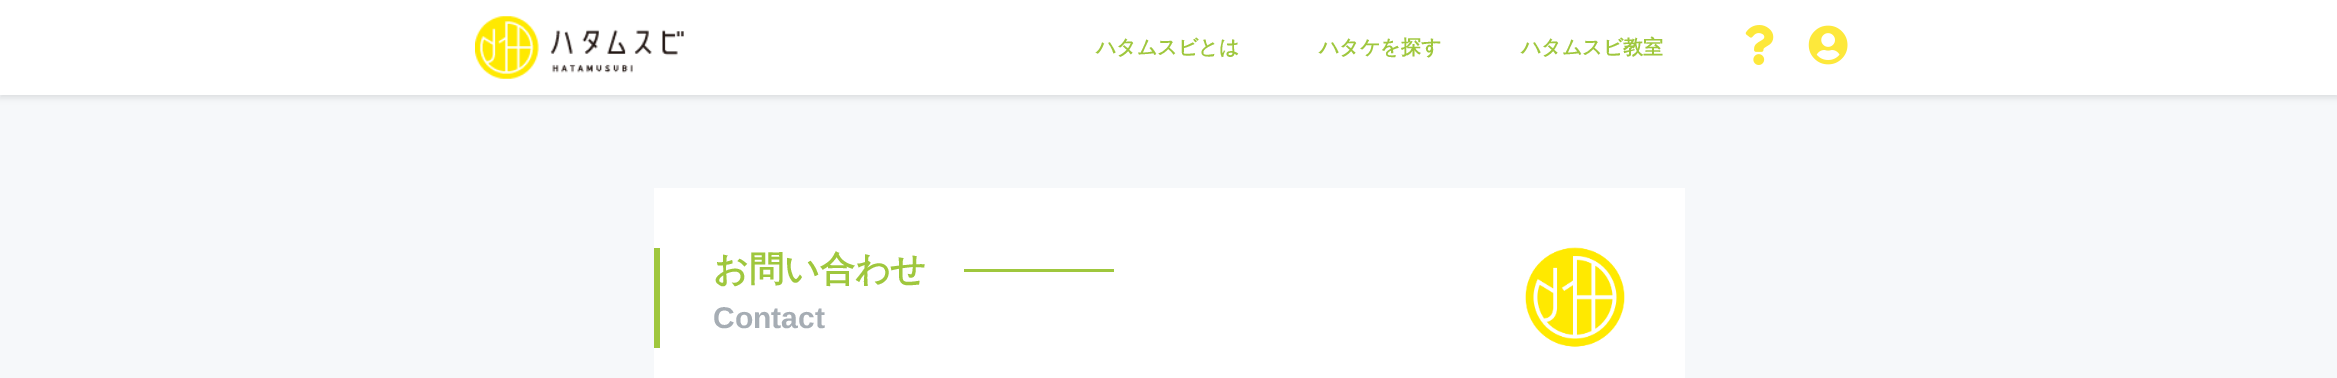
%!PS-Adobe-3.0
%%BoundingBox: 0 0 2337 378
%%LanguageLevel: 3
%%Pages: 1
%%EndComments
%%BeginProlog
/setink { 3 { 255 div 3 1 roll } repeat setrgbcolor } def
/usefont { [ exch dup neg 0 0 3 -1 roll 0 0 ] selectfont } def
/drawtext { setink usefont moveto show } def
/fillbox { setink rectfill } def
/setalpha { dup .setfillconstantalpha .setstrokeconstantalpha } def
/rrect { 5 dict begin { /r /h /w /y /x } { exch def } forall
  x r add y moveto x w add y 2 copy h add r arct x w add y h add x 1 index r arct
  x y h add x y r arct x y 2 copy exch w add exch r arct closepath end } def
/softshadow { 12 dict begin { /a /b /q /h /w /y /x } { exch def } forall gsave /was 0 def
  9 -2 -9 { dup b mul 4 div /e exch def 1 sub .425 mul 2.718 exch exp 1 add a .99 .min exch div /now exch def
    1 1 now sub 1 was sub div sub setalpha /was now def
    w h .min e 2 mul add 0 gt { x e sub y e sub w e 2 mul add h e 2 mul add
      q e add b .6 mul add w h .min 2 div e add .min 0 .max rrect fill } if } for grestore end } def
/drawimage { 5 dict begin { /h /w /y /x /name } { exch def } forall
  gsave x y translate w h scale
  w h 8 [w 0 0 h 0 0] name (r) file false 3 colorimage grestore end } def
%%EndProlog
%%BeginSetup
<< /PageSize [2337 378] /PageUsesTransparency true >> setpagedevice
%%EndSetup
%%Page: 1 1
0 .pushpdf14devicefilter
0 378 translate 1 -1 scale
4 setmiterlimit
0 0 2337 378 246 248 250 fillbox
0 0 0 setink
0 3 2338 95 0 3 0.1 softshadow
0 0 2337 95 255 255 255 fillbox
(assets/img1.rgb) 475 16 209 63 drawimage
(ハタムスビとは) 1096 54 /WenQuanYiZenHei-Bold 20 159 199 61 drawtext
(ハタケを探す) 1319 54 /WenQuanYiZenHei-Bold 20 159 199 61 drawtext
(ハタムスビ教室) 1521 54 /WenQuanYiZenHei-Bold 20 159 199 61 drawtext
(assets/img2.rgb) 1745 25 29 40 drawimage
(assets/img3.rgb) 1808 25 40 40 drawimage
654 188 1031 190 255 255 255 fillbox
654 248 6 100 159 199 61 fillbox
(お問い合わせ) 713 281 /WenQuanYiZenHei-Bold 35 159 199 61 drawtext
964 269 150 3 159 199 61 fillbox
(Contact) 713 328 /LiberationSans-Bold 30 166 173 180 drawtext
(assets/img4.rgb) 1525 247 100 100 drawimage
.poppdf14devicefilter showpage
%%EOF
